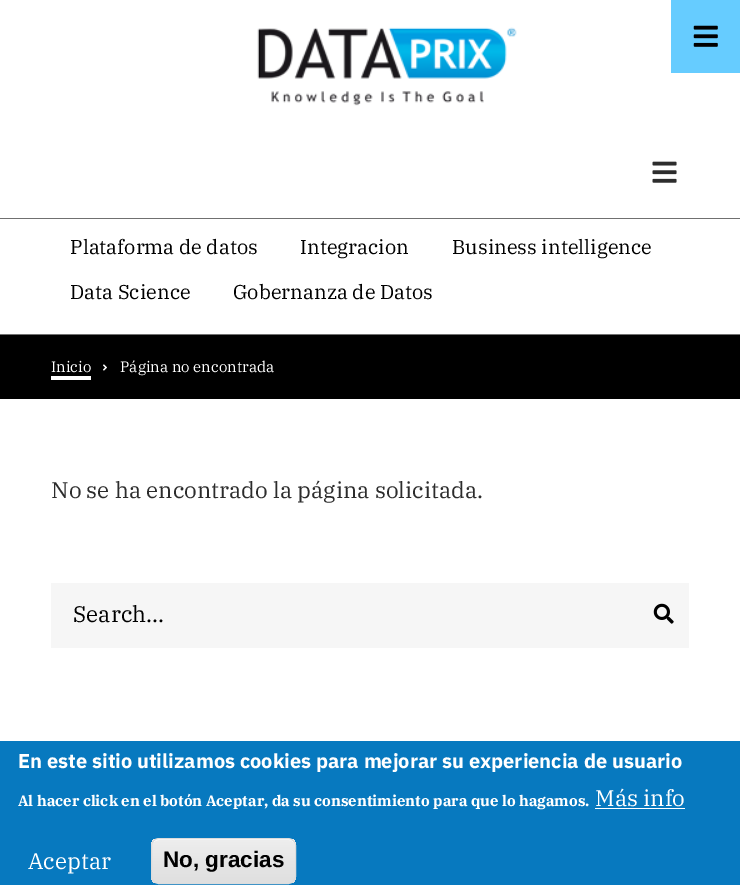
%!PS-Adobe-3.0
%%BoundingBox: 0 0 740 885
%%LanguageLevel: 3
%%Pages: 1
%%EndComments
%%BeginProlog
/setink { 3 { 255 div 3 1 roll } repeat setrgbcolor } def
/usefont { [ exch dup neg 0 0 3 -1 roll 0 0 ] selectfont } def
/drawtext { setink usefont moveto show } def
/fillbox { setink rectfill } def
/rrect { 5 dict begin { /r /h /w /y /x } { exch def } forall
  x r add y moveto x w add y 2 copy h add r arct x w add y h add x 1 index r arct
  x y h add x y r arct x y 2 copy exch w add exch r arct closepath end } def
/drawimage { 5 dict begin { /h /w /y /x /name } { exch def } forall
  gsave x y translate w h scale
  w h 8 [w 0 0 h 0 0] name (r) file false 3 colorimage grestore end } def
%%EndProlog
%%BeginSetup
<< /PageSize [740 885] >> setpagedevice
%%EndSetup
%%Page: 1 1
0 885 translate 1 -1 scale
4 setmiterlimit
0 0 740 885 255 255 255 fillbox
671 0 69 73 102 204 255 fillbox
(assets/img1.rgb) 693 25 25 22 drawimage
0 218 740 1 112 112 112 fillbox
(assets/img2.rgb) 257 27 260 79 drawimage
(assets/img3.rgb) 652 161 25 22 drawimage
0 334 740 1 112 112 112 fillbox
(Plataforma de datos) 70 254 /IBMPlexSerif-Regular 20 0 0 0 drawtext
(Integracion) 300 254 /IBMPlexSerif-Regular 20 0 0 0 drawtext
(Business intelligence) 452 254 /IBMPlexSerif-Regular 20 0 0 0 drawtext
(Data Science) 70 299 /IBMPlexSerif-Regular 20 0 0 0 drawtext
(Gobernanza de Datos) 233 299 /IBMPlexSerif-Regular 20 0 0 0 drawtext
0 335 740 64 0 0 0 fillbox
(Inicio) 51 372 /IBMPlexSerif-Regular 15 255 255 255 drawtext
51 376 40 4 255 255 255 fillbox
(assets/img4.rgb) 103 364 4 7 drawimage
(Página no encontrada) 120 372 /IBMPlexSerif-Regular 15 255 255 255 drawtext
(No se ha encontrado la página solicitada.) 51 498 /IBMPlexSerif-Regular 22.5 44 44 44 drawtext
51 583 638 65 246 246 246 fillbox
(Search...) 73 622 /IBMPlexSerif-Regular 22.5 0 0 0 drawtext
(assets/img5.rgb) 653 603 21 21 drawimage
0 741 740 144 7 121 191 fillbox
(En este sitio utilizamos cookies para mejorar su experiencia de usuario) 18 768 /IBMPlexSans-Bold 20 255 255 255 drawtext
(Al hacer click en el botón Aceptar, da su consentimiento para que lo hagamos.) 18 806 /IBMPlexSerif-Bold 15 255 255 255 drawtext
(Más info) 595 806 /IBMPlexSerif-Regular 22.5 255 255 255 drawtext
595 808 90 1 255 255 255 fillbox
(Aceptar) 28 869 /IBMPlexSerif-Regular 22.5 255 255 255 drawtext
gsave
151 838 145 46 8 rrect clip newpath
gsave 151 839 moveto 296 839 lineto 296 883 lineto 151 883 lineto closepath clip newpath
<< /ShadingType 2 /ColorSpace /DeviceRGB /Coords [224 839 224 883] /Extend [true true] /Function << /FunctionType 3 /Domain [0 1] /Functions [<< /FunctionType 2 /Domain [0 1] /C0 [0.929 0.929 0.929] /C1 [0.929 0.929 0.929] /N 1 >> << /FunctionType 2 /Domain [0 1] /C0 [0.929 0.929 0.929] /C1 [0.875 0.875 0.875] /N 1 >>] /Bounds [0.05] /Encode [0 1 0 1] >> >> shfill grestore
grestore
159 840 moveto 289 840 lineto 292 840 295 843 295 846 curveto 295 845 lineto 295 842 292 839 289 839 curveto 159 839 lineto 157 839 155 840 154 842 curveto 155 841 157 840 159 840 curveto closepath fill
220 220 220 setink
151.5 838.5 144 45 7.5 rrect stroke
(No, gracias) 163 867 /LiberationSans-Bold 22.5 0 0 0 drawtext
showpage
%%EOF
